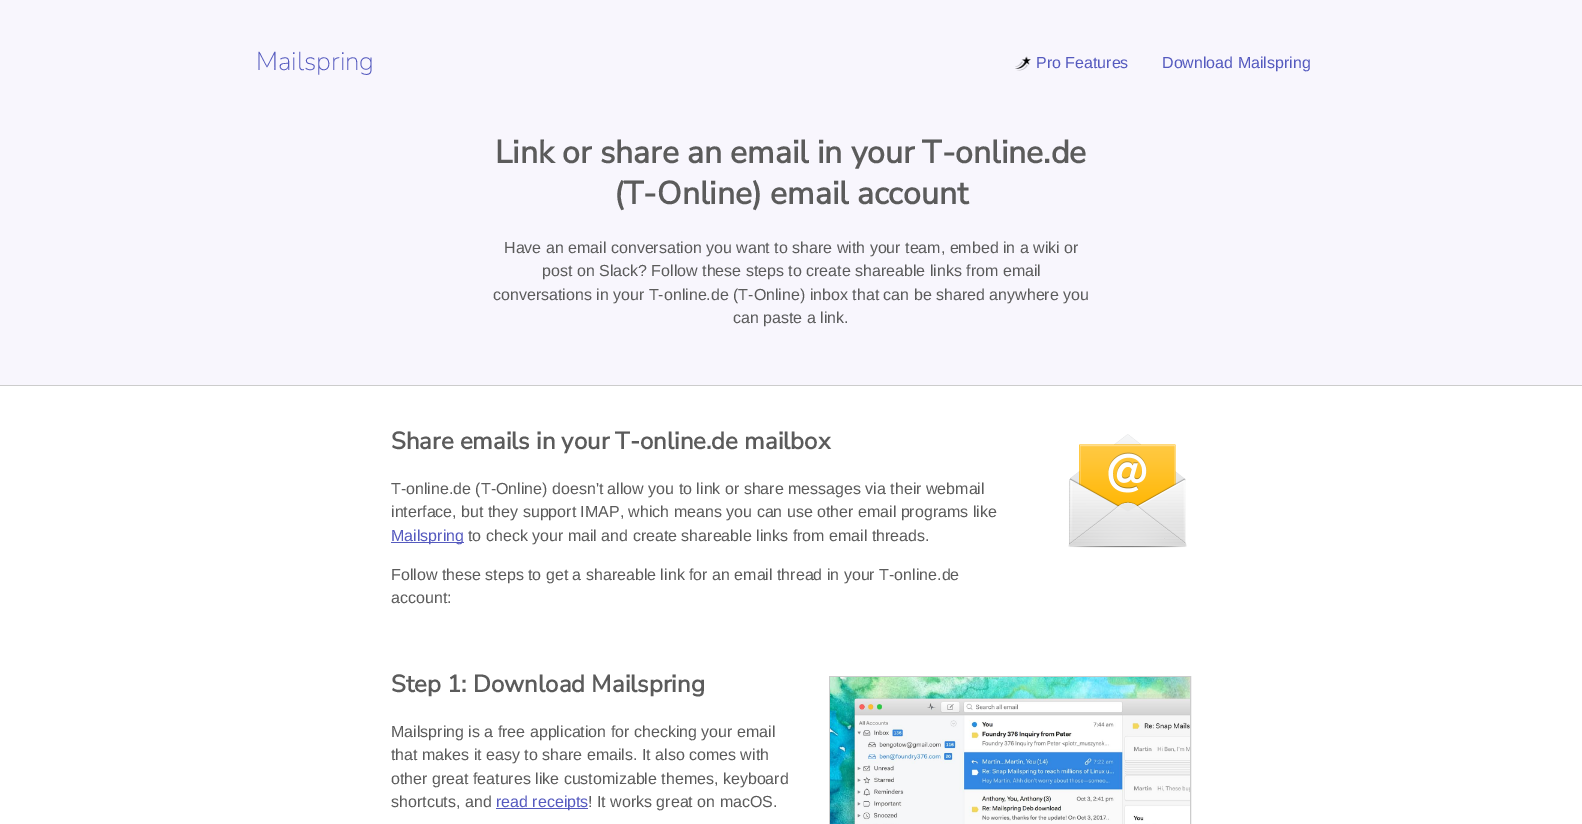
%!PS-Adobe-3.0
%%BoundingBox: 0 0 1582 824
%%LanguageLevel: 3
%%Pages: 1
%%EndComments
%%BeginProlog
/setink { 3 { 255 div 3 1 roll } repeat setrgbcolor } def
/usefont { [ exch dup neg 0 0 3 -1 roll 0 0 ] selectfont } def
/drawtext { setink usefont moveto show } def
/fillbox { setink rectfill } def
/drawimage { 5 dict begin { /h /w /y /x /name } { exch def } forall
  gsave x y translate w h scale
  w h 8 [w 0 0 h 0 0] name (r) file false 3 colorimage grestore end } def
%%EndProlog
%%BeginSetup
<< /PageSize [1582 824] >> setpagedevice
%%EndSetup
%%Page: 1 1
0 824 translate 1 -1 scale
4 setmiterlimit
0 0 1582 824 255 255 255 fillbox
0 0 1582 385 248 246 253 fillbox
0 385 1582 1 204 204 204 fillbox
(Mailspring) 256 70 /NunitoSans-ExtraLight 26 85 90 191 drawtext
(assets/img1.rgb) 1015 56 16 15 drawimage
(Pro Features) 1036 68 /LiberationSans-Regular 16 85 90 191 drawtext
(Download Mailspring) 1162 68 /LiberationSans-Regular 16 85 90 191 drawtext
(Link or share an email in your T-online.de) 495 163 /NunitoSans-Bold 32 91 91 91 drawtext
(\(T-Online\) email account) 614 204 /NunitoSans-Bold 32 91 91 91 drawtext
(Have an email conversation you want to share with your team, embed in a wiki or) 504 253 /LiberationSans-Regular 16 91 91 91 drawtext
(post on Slack? Follow these steps to create shareable links from email) 542 276 /LiberationSans-Regular 16 91 91 91 drawtext
(conversations in your T-online.de \(T-Online\) inbox that can be shared anywhere you) 493 300 /LiberationSans-Regular 16 91 91 91 drawtext
(can paste a link.) 733 323 /LiberationSans-Regular 16 91 91 91 drawtext
(Share emails in your T-online.de mailbox) 391 449 /NunitoSans-Bold 24 91 91 91 drawtext
(assets/img2.rgb) 1068 434 119 114 drawimage
(T-online.de \(T-Online\) doesn't allow you to link or share messages via their webmail) 391 494 /LiberationSans-Regular 16 91 91 91 drawtext
(interface, but they support IMAP, which means you can use other email programs like) 391 517 /LiberationSans-Regular 16 91 91 91 drawtext
391 542 73 1 85 90 191 fillbox
(Mailspring) 391 541 /LiberationSans-Regular 16 85 90 191 drawtext
(to check your mail and create shareable links from email threads.) 468 541 /LiberationSans-Regular 16 91 91 91 drawtext
(Follow these steps to get a shareable link for an email thread in your T-online.de) 391 580 /LiberationSans-Regular 16 91 91 91 drawtext
(account:) 391 603 /LiberationSans-Regular 16 91 91 91 drawtext
(Step 1: Download Mailspring) 391 692 /NunitoSans-Bold 24 91 91 91 drawtext
(Mailspring is a free application for checking your email) 391 737 /LiberationSans-Regular 16 91 91 91 drawtext
(that makes it easy to share emails. It also comes with) 391 760 /LiberationSans-Regular 16 91 91 91 drawtext
(other great features like customizable themes, keyboard) 391 784 /LiberationSans-Regular 16 91 91 91 drawtext
(shortcuts, and) 391 807 /LiberationSans-Regular 16 91 91 91 drawtext
496 808 92 1 85 90 191 fillbox
(read receipts) 496 807 /LiberationSans-Regular 16 85 90 191 drawtext
(! It works great on macOS.) 588 807 /LiberationSans-Regular 16 91 91 91 drawtext
204 204 204 setink
829.5 676.5 361 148 rectstroke
(assets/img3.rgb) 830 677 360 147 drawimage
showpage
%%EOF
